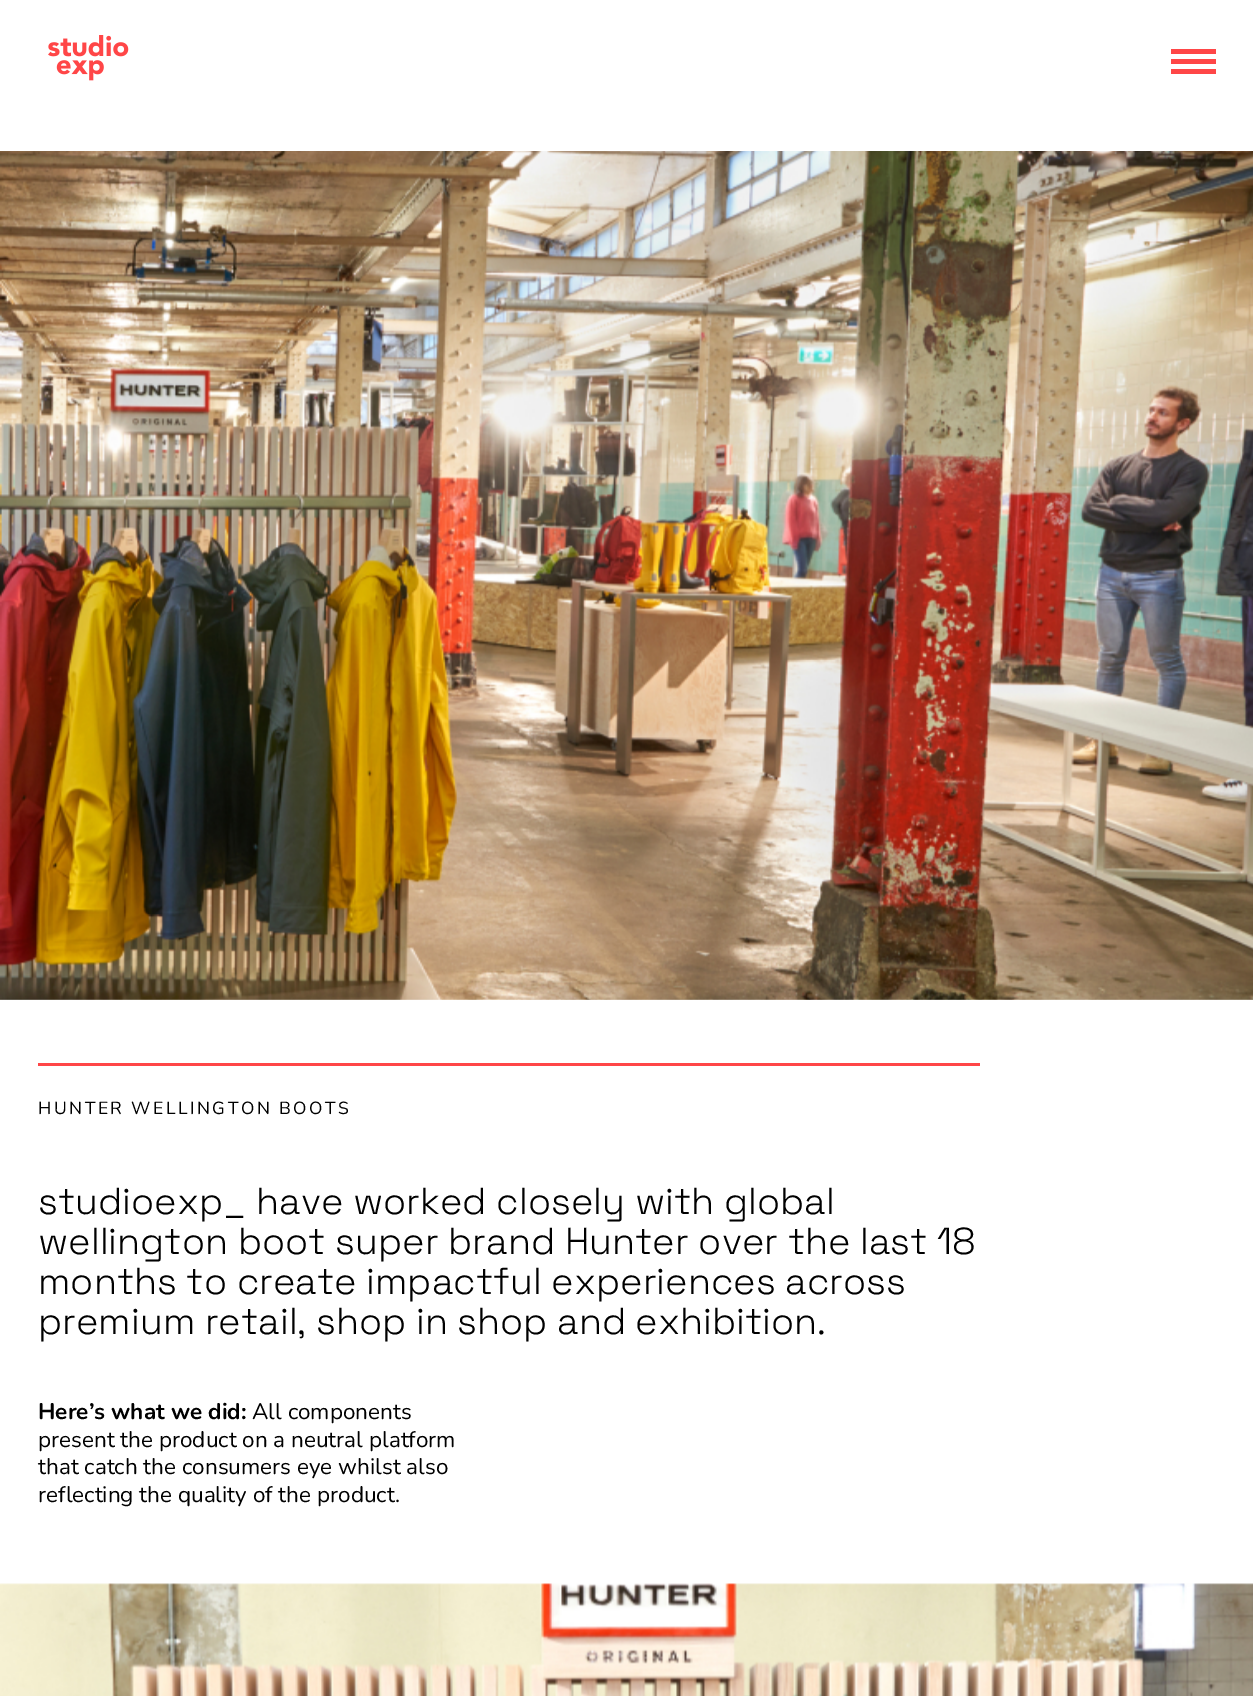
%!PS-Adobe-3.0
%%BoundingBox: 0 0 1253 1696
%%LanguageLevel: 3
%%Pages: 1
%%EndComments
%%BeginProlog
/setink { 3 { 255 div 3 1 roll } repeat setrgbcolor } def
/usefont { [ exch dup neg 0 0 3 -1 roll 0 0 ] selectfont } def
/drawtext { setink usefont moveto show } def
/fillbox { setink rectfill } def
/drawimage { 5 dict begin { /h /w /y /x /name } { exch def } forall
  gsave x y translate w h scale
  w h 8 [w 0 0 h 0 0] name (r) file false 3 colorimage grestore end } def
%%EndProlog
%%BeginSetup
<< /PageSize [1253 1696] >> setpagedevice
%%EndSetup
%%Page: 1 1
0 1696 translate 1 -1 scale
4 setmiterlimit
0 0 1253 1696 255 255 255 fillbox
(assets/img1.rgb) 48 35 81 46 drawimage
1171 49 45 5 255 70 71 fillbox
1171 59 45 5 255 70 71 fillbox
1171 69 45 5 255 70 71 fillbox
(assets/img2.rgb) 0 151 1253 849 drawimage
38 1063 942 3 255 70 71 fillbox
/Nunito-Regular 17.5 usefont
0 0 0 setink
38 1114 moveto 2.5 0 (HUNTER WELLINGTON BOOTS) ashow
(studioexp_ have worked closely with global) 38 1214 /SpaceGrotesk-Light 37.5 0 0 0 drawtext
(wellington boot super brand Hunter over the last 18) 38 1254 /SpaceGrotesk-Light 37.5 0 0 0 drawtext
(months to create impactful experiences across) 38 1294 /SpaceGrotesk-Light 37.5 0 0 0 drawtext
(premium retail, shop in shop and exhibition.) 38 1334 /SpaceGrotesk-Light 37.5 0 0 0 drawtext
(Here’s what we did:) 38 1419 /Nunito-Bold 22.5 0 0 0 drawtext
(All components) 252 1419 /Nunito-Regular 22.5 0 0 0 drawtext
(present the product on a neutral platform) 38 1447 /Nunito-Regular 22.5 0 0 0 drawtext
(that catch the consumers eye whilst also) 38 1474 /Nunito-Regular 22.5 0 0 0 drawtext
(reflecting the quality of the product.) 38 1502 /Nunito-Regular 22.5 0 0 0 drawtext
(assets/img3.rgb) 0 1583 1253 113 drawimage
showpage
%%EOF
